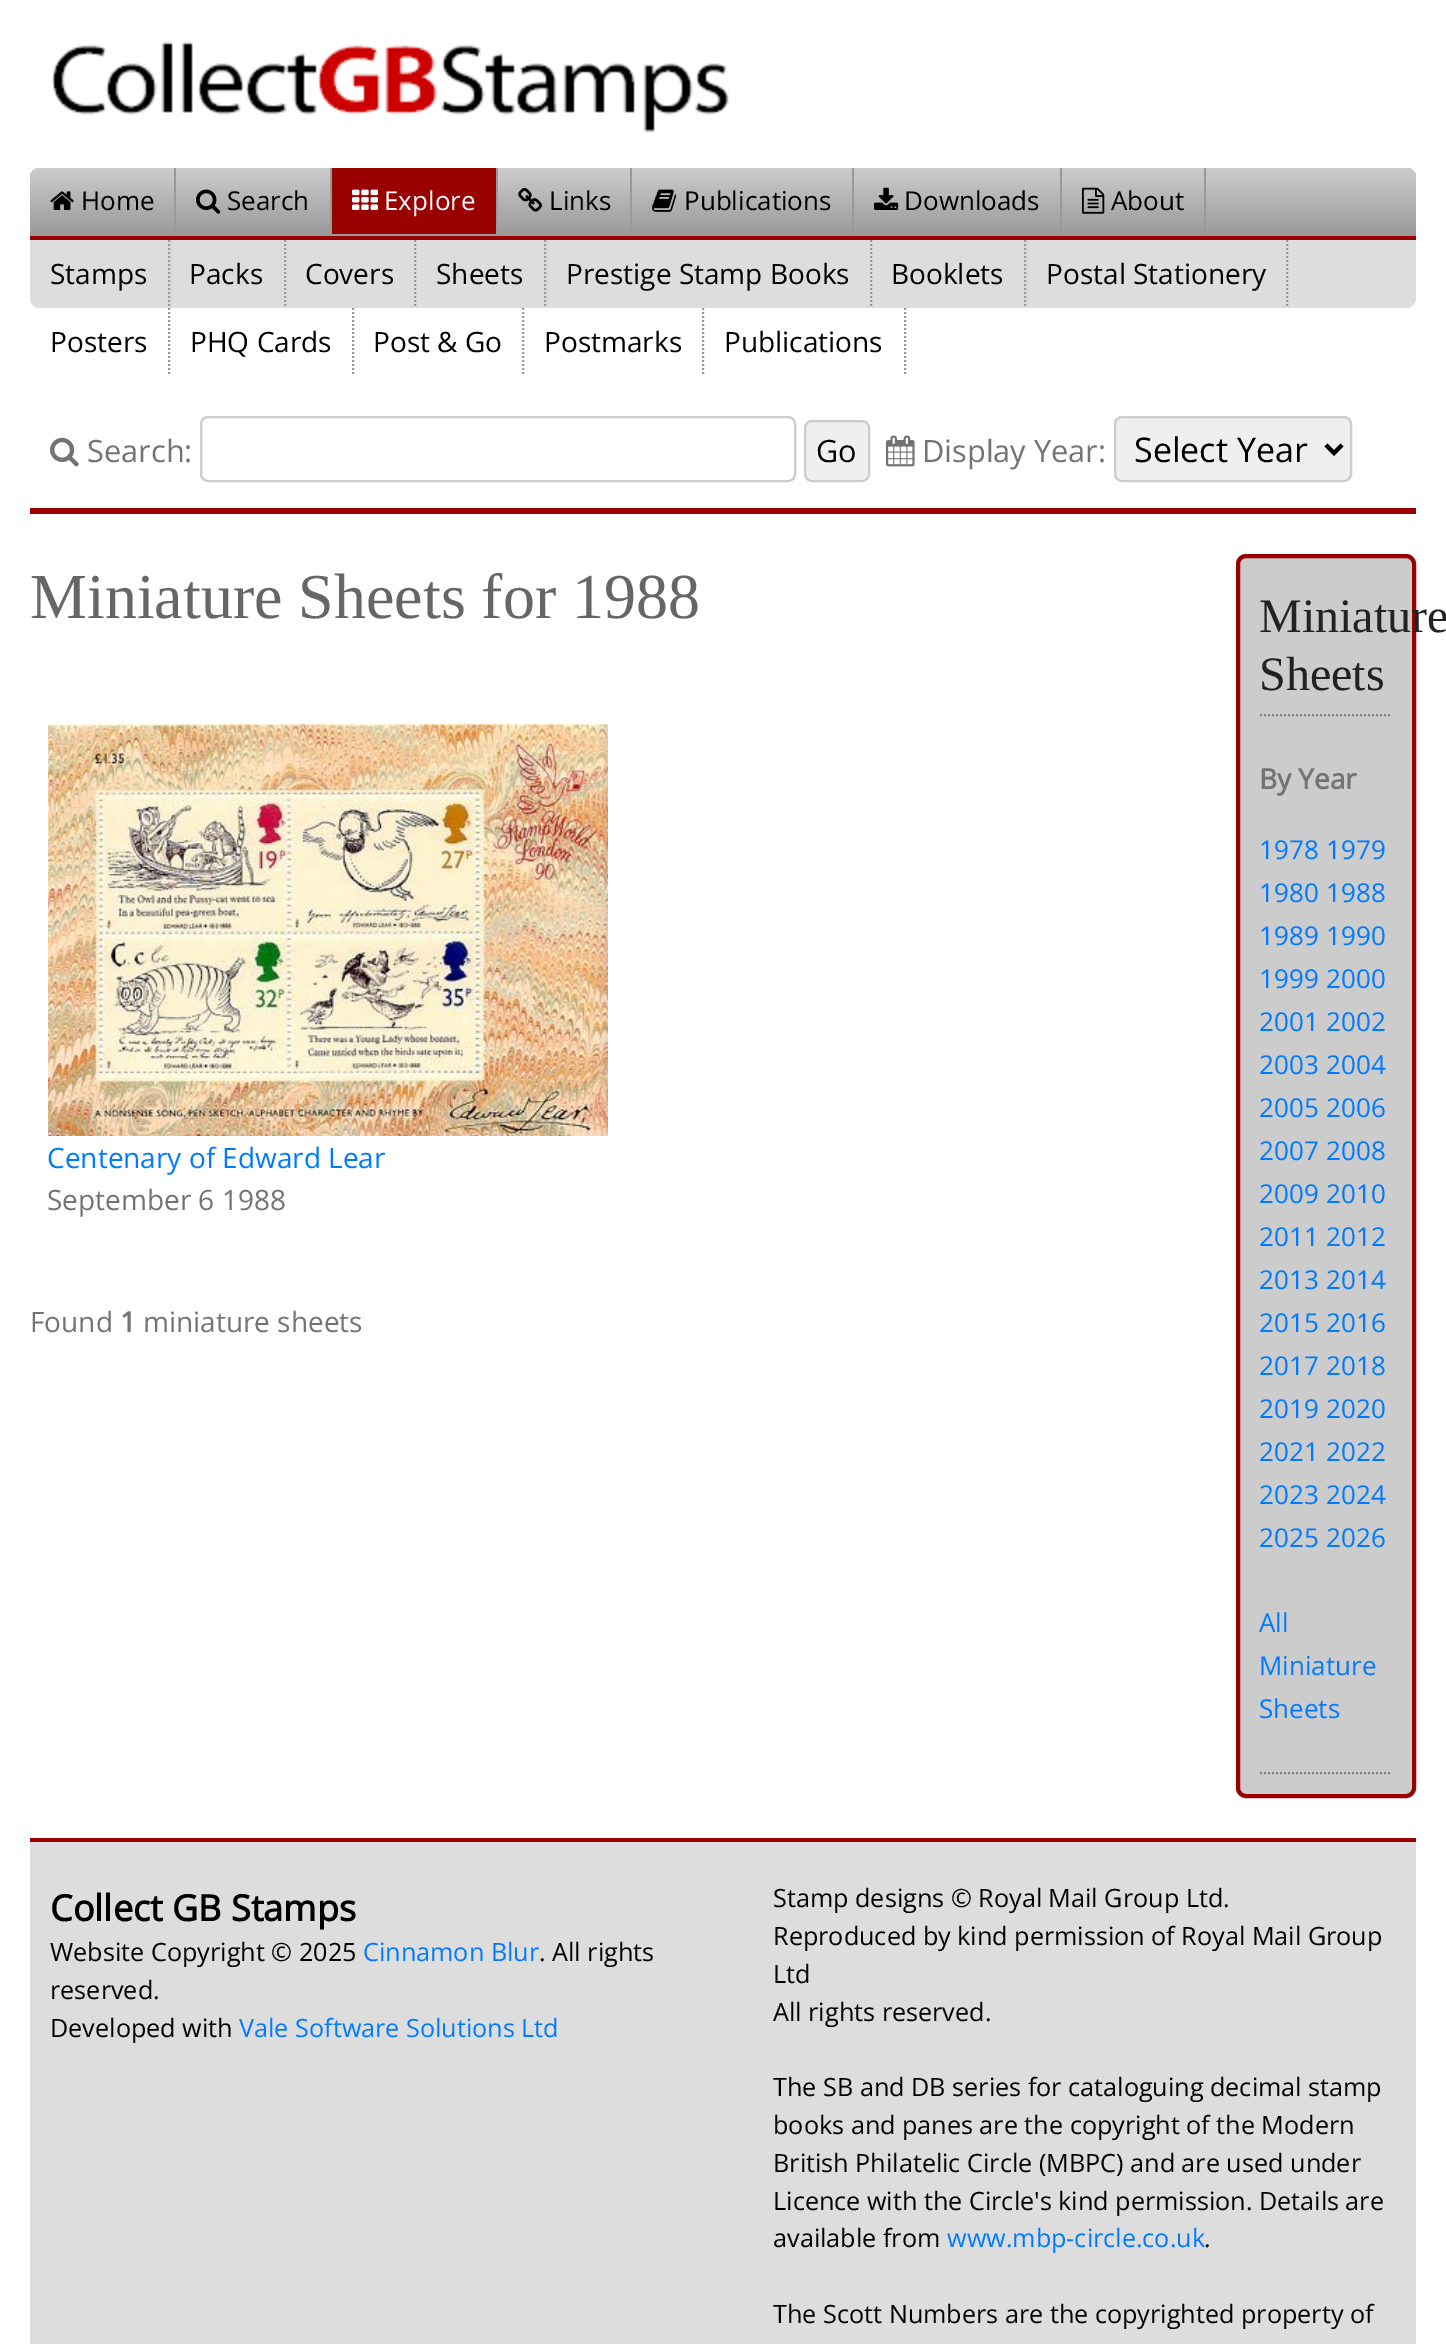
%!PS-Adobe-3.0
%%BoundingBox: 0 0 1446 2344
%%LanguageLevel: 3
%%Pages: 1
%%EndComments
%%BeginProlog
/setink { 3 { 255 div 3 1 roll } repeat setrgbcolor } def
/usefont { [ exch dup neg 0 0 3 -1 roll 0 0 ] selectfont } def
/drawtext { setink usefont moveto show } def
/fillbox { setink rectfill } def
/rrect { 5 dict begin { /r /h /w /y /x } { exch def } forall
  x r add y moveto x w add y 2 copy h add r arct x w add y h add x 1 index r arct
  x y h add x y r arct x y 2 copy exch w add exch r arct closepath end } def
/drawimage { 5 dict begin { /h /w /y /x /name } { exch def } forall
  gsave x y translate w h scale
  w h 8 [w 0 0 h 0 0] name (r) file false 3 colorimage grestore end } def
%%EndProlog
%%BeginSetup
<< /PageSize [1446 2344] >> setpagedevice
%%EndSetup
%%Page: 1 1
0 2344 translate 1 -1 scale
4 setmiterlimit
0 0 1446 2344 255 255 255 fillbox
(assets/img1.rgb) 51 41 678 92 drawimage
gsave 40 168 moveto 1406 168 lineto 1411.5 168 1416 172.5 1416 178 curveto 1416 236 lineto 30 236 lineto 30 178 lineto 30 172.5 34.5 168 40 168 curveto closepath clip newpath
<< /ShadingType 2 /ColorSpace /DeviceRGB /Coords [30 168 30 236] /Extend [true true] /Function << /FunctionType 2 /Domain [0 1] /C0 [0.8 0.8 0.8] /C1 [0.6 0.6 0.6] /N 1 >> >> shfill grestore
174 168 2 66 153 153 153 fillbox
(assets/img2.rgb) 50 191 24 19 drawimage
(Home) 81 210 /OpenSans-Regular 26 0 0 0 drawtext
330 168 2 66 153 153 153 fillbox
(assets/img3.rgb) 196 189 25 25 drawimage
(Search) 227 210 /OpenSans-Regular 26 0 0 0 drawtext
496 168 2 66 153 153 153 fillbox
332 168 164 66 153 0 0 fillbox
(assets/img4.rgb) 352 189 26 21 drawimage
(Explore) 384 210 /OpenSans-Regular 26 255 255 255 drawtext
630 168 2 66 153 153 153 fillbox
(assets/img5.rgb) 518 187 24 25 drawimage
(Links) 549 210 /OpenSans-Regular 26 0 0 0 drawtext
852 168 2 66 153 153 153 fillbox
(assets/img6.rgb) 652 189 25 23 drawimage
(Publications) 684 210 /OpenSans-Regular 26 0 0 0 drawtext
1060 168 2 66 153 153 153 fillbox
(assets/img7.rgb) 874 187 25 23 drawimage
(Downloads) 904 210 /OpenSans-Regular 26 0 0 0 drawtext
1204 168 2 66 153 153 153 fillbox
(assets/img8.rgb) 1082 187 23 27 drawimage
(About) 1111 210 /OpenSans-Regular 26 0 0 0 drawtext
221 221 221 setink
30 236 moveto 1416 236 lineto 1416 298 lineto 1416 303.5 1411.5 308 1406 308 curveto 40 308 lineto 34.5 308 30 303.5 30 298 curveto closepath fill
30 236 1386 4 153 0 0 fillbox
153 153 153 setink
2 setlinewidth
[2 2] 0 setdash
169 240 moveto 169 308 lineto stroke
(Stamps) 50 284 /OpenSans-Regular 28 0 0 0 drawtext
153 153 153 setink
285 240 moveto 285 308 lineto stroke
(Packs) 189 284 /OpenSans-Regular 28 0 0 0 drawtext
153 153 153 setink
415 240 moveto 415 308 lineto stroke
(Covers) 305 284 /OpenSans-Regular 28 0 0 0 drawtext
153 153 153 setink
545 240 moveto 545 308 lineto stroke
(Sheets) 436 284 /OpenSans-Regular 28 0 0 0 drawtext
153 153 153 setink
871 240 moveto 871 308 lineto stroke
(Prestige Stamp Books) 566 284 /OpenSans-Regular 28 0 0 0 drawtext
153 153 153 setink
1025 240 moveto 1025 308 lineto stroke
(Booklets) 891 284 /OpenSans-Regular 28 0 0 0 drawtext
153 153 153 setink
1287 240 moveto 1287 308 lineto stroke
(Postal Stationery) 1046 284 /OpenSans-Regular 28 0 0 0 drawtext
153 153 153 setink
169 308 moveto 169 376 lineto stroke
(Posters) 50 352 /OpenSans-Regular 28 0 0 0 drawtext
153 153 153 setink
353 308 moveto 353 376 lineto stroke
(PHQ Cards) 190 352 /OpenSans-Regular 28 0 0 0 drawtext
153 153 153 setink
523 308 moveto 523 376 lineto stroke
(Post & Go) 373 352 /OpenSans-Regular 28 0 0 0 drawtext
153 153 153 setink
703 308 moveto 703 376 lineto stroke
(Postmarks) 544 352 /OpenSans-Regular 28 0 0 0 drawtext
153 153 153 setink
905 308 moveto 905 376 lineto stroke
(Publications) 724 352 /OpenSans-Regular 28 0 0 0 drawtext
30 508 1386 6 153 0 0 fillbox
(assets/img9.rgb) 50 437 29 30 drawimage
(Search:) 87 462 /OpenSans-Regular 30.75 115 115 115 drawtext
204 204 204 setink
[] 0 setdash
201 417 594 64 7 rrect stroke
239 239 239 setink
805 421 64 60 7 rrect gsave fill grestore
204 204 204 setink
stroke
(Go) 816 462 /OpenSans-Regular 30.75 0 0 0 drawtext
(assets/img10.rgb) 886 435 29 32 drawimage
(Display Year:) 922 462 /OpenSans-Regular 30.75 115 115 115 drawtext
239 239 239 setink
1115 417 236 64 7 rrect gsave fill grestore
204 204 204 setink
stroke
0 0 0 setink
4 setlinewidth
1326 445 moveto 1334 453 lineto 1342 445 lineto stroke
(Select Year) 1134 462 /OpenSans-Regular 34 0 0 0 drawtext
(Miniature Sheets for 1988) 30 618 /LiberationSerif-Regular 64 102 102 102 drawtext
(assets/img11.rgb) 48 724 560 412 drawimage
(Centenary of Edward Lear) 47 1168 /OpenSans-Regular 28 0 123 255 drawtext
(September 6 1988) 47 1210 /OpenSans-Regular 28 115 115 115 drawtext
(Found) 30 1332 /OpenSans-Regular 28 115 115 115 drawtext
(1) 120 1332 /OpenSans-Bold 28 115 115 115 drawtext
(miniature sheets) 143 1332 /OpenSans-Regular 28 115 115 115 drawtext
204 204 204 setink
1238 556 176 1240 8 rrect gsave fill grestore
153 0 0 setink
stroke
128 128 128 setink
2 setlinewidth
[2 2] 0 setdash
1260 715 moveto 1392 715 lineto stroke
(Miniature) 1259 632 /LiberationSerif-Regular 48 34 34 34 drawtext
(Sheets) 1259 690 /LiberationSerif-Regular 48 34 34 34 drawtext
128 128 128 setink
1260 1773 moveto 1392 1773 lineto stroke
(By Year) 1259 789 /OpenSans-Bold 28 115 115 115 drawtext
(1978) 1259 859 /OpenSans-Regular 26 0 123 255 drawtext
(1979) 1326 859 /OpenSans-Regular 26 0 123 255 drawtext
(1980) 1259 902 /OpenSans-Regular 26 0 123 255 drawtext
(1988) 1326 902 /OpenSans-Regular 26 0 123 255 drawtext
(1989) 1259 945 /OpenSans-Regular 26 0 123 255 drawtext
(1990) 1326 945 /OpenSans-Regular 26 0 123 255 drawtext
(1999) 1259 988 /OpenSans-Regular 26 0 123 255 drawtext
(2000) 1326 988 /OpenSans-Regular 26 0 123 255 drawtext
(2001) 1259 1031 /OpenSans-Regular 26 0 123 255 drawtext
(2002) 1326 1031 /OpenSans-Regular 26 0 123 255 drawtext
(2003) 1259 1074 /OpenSans-Regular 26 0 123 255 drawtext
(2004) 1326 1074 /OpenSans-Regular 26 0 123 255 drawtext
(2005) 1259 1117 /OpenSans-Regular 26 0 123 255 drawtext
(2006) 1326 1117 /OpenSans-Regular 26 0 123 255 drawtext
(2007) 1259 1160 /OpenSans-Regular 26 0 123 255 drawtext
(2008) 1326 1160 /OpenSans-Regular 26 0 123 255 drawtext
(2009) 1259 1203 /OpenSans-Regular 26 0 123 255 drawtext
(2010) 1326 1203 /OpenSans-Regular 26 0 123 255 drawtext
(2011) 1259 1246 /OpenSans-Regular 26 0 123 255 drawtext
(2012) 1326 1246 /OpenSans-Regular 26 0 123 255 drawtext
(2013) 1259 1289 /OpenSans-Regular 26 0 123 255 drawtext
(2014) 1326 1289 /OpenSans-Regular 26 0 123 255 drawtext
(2015) 1259 1332 /OpenSans-Regular 26 0 123 255 drawtext
(2016) 1326 1332 /OpenSans-Regular 26 0 123 255 drawtext
(2017) 1259 1375 /OpenSans-Regular 26 0 123 255 drawtext
(2018) 1326 1375 /OpenSans-Regular 26 0 123 255 drawtext
(2019) 1259 1418 /OpenSans-Regular 26 0 123 255 drawtext
(2020) 1326 1418 /OpenSans-Regular 26 0 123 255 drawtext
(2021) 1259 1461 /OpenSans-Regular 26 0 123 255 drawtext
(2022) 1326 1461 /OpenSans-Regular 26 0 123 255 drawtext
(2023) 1259 1504 /OpenSans-Regular 26 0 123 255 drawtext
(2024) 1326 1504 /OpenSans-Regular 26 0 123 255 drawtext
(2025) 1259 1547 /OpenSans-Regular 26 0 123 255 drawtext
(2026) 1326 1547 /OpenSans-Regular 26 0 123 255 drawtext
(All) 1259 1632 /OpenSans-Regular 26 0 123 255 drawtext
(Miniature) 1259 1675 /OpenSans-Regular 26 0 123 255 drawtext
(Sheets) 1259 1718 /OpenSans-Regular 26 0 123 255 drawtext
30 1842 1386 502 221 221 221 fillbox
30 1838 1386 4 153 0 0 fillbox
(Collect GB Stamps) 50 1921 /OpenSans-Bold 36 0 0 0 drawtext
(Website Copyright © 2025) 50 1961 /OpenSans-Regular 25.2 0 0 0 drawtext
(Cinnamon Blur) 363 1961 /OpenSans-Regular 25.2 0 123 255 drawtext
(. All rights) 539 1961 /OpenSans-Regular 25.2 0 0 0 drawtext
(reserved.) 50 1999 /OpenSans-Regular 25.2 0 0 0 drawtext
(Developed with) 50 2037 /OpenSans-Regular 25.2 0 0 0 drawtext
(Vale Software Solutions Ltd) 239 2037 /OpenSans-Regular 25.2 0 123 255 drawtext
(Stamp designs © Royal Mail Group Ltd.) 773 1907 /OpenSans-Regular 25.2 0 0 0 drawtext
(Reproduced by kind permission of Royal Mail Group) 773 1945 /OpenSans-Regular 25.2 0 0 0 drawtext
(Ltd) 773 1983 /OpenSans-Regular 25.2 0 0 0 drawtext
(All rights reserved.) 773 2021 /OpenSans-Regular 25.2 0 0 0 drawtext
(The SB and DB series for cataloguing decimal stamp) 773 2096 /OpenSans-Regular 25.2 0 0 0 drawtext
(books and panes are the copyright of the Modern) 773 2134 /OpenSans-Regular 25.2 0 0 0 drawtext
(British Philatelic Circle \(MBPC\) and are used under) 773 2172 /OpenSans-Regular 25.2 0 0 0 drawtext
(Licence with the Circle's kind permission. Details are) 773 2210 /OpenSans-Regular 25.2 0 0 0 drawtext
(available from) 773 2247 /OpenSans-Regular 25.2 0 0 0 drawtext
(www.mbp-circle.co.uk) 947 2247 /OpenSans-Regular 25.2 0 123 255 drawtext
(.) 1204 2247 /OpenSans-Regular 25.2 0 0 0 drawtext
(The Scott Numbers are the copyrighted property of) 773 2323 /OpenSans-Regular 25.2 0 0 0 drawtext
showpage
%%EOF
